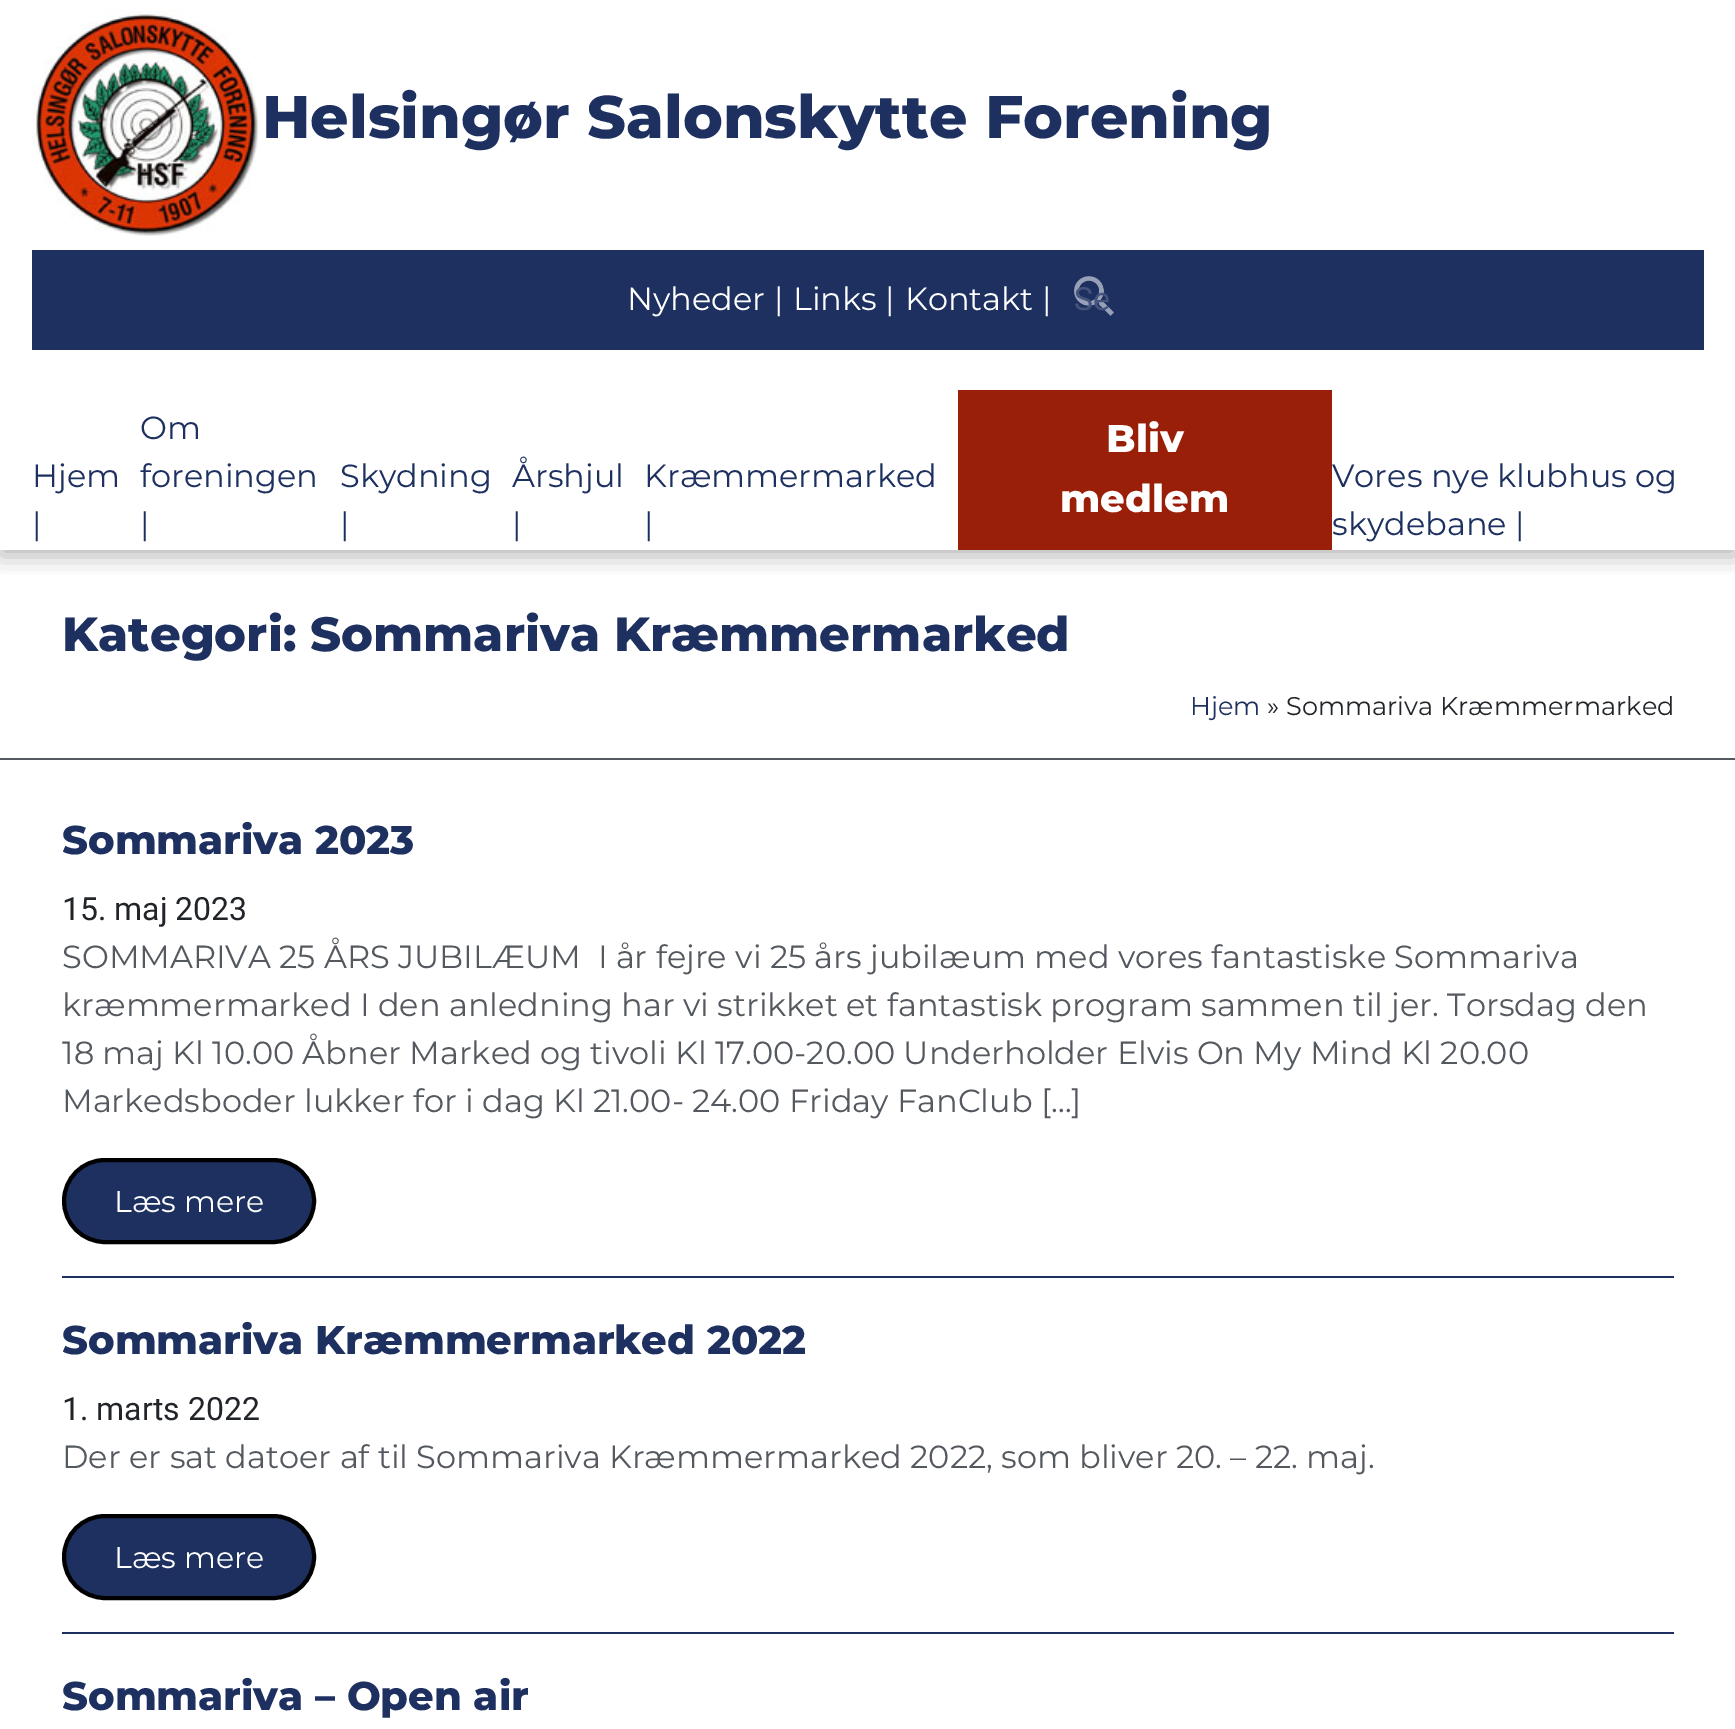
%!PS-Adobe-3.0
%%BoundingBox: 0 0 1735 1729
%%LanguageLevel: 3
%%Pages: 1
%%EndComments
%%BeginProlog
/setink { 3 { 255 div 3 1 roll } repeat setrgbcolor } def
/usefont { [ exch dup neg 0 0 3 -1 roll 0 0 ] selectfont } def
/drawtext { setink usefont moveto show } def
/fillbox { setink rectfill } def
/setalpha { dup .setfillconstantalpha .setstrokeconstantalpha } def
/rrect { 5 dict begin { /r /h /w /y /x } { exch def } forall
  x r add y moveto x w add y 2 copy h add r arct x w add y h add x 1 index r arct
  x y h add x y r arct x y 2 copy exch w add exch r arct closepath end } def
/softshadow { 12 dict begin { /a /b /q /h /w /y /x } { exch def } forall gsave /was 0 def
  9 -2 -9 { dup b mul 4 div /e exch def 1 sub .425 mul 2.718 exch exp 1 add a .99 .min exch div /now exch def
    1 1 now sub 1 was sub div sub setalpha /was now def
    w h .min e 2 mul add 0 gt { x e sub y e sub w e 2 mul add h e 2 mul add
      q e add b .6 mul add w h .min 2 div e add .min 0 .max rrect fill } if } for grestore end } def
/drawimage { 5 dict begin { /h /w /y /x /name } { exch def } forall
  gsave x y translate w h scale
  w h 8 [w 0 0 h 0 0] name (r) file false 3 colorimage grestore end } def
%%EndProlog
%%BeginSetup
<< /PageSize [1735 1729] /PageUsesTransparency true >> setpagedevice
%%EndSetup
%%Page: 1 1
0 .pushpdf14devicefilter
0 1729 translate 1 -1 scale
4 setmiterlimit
0 0 1735 1729 255 255 255 fillbox
gsave
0 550 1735 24 rectclip
0 0 0 setink
0 6 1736 550 0 12 0.29 softshadow
grestore
(assets/img1.rgb) 32 10 227 226 drawimage
(Helsingør Salonskytte Forening) 262 138 /Montserrat-ExtraBold 60 29 48 96 drawtext
32 250 1672 100 29 48 96 fillbox
(Nyheder |) 627 310 /Montserrat-Regular 32 255 255 255 drawtext
(Links |) 793 310 /Montserrat-Regular 32 255 255 255 drawtext
(Kontakt |) 905 310 /Montserrat-Regular 32 255 255 255 drawtext
(assets/img2.rgb) 1074 276 40 40 drawimage
(Se) 1074 310 /Roboto-Regular 32 68 84 124 drawtext
(Hjem) 32 487 /Montserrat-Regular 32 29 48 96 drawtext
(|) 32 535 /Montserrat-Regular 32 29 48 96 drawtext
(Om) 140 439 /Montserrat-Regular 32 29 48 96 drawtext
(foreningen) 140 487 /Montserrat-Regular 32 29 48 96 drawtext
(|) 140 535 /Montserrat-Regular 32 29 48 96 drawtext
(Skydning) 340 487 /Montserrat-Regular 32 29 48 96 drawtext
(|) 340 535 /Montserrat-Regular 32 29 48 96 drawtext
(Årshjul) 512 487 /Montserrat-Regular 32 29 48 96 drawtext
(|) 512 535 /Montserrat-Regular 32 29 48 96 drawtext
(Kræmmermarked) 644 487 /Montserrat-Regular 32 29 48 96 drawtext
(|) 644 535 /Montserrat-Regular 32 29 48 96 drawtext
958 390 374 160 153 31 8 fillbox
(Bliv) 1106 452 /Montserrat-ExtraBold 38.5 255 255 255 drawtext
(medlem) 1060 512 /Montserrat-ExtraBold 38.5 255 255 255 drawtext
(Vores nye klubhus og) 1332 487 /Montserrat-Regular 32 29 48 96 drawtext
(skydebane |) 1332 535 /Montserrat-Regular 32 29 48 96 drawtext
0 758 1735 2 84 89 95 fillbox
(Kategori: Sommariva Kræmmermarked) 62 651 /Montserrat-ExtraBold 48 29 48 96 drawtext
(Hjem) 1190 715 /Montserrat-Regular 25.6 29 48 96 drawtext
(» Sommariva Kræmmermarked) 1267 715 /Montserrat-Regular 25.6 33 37 41 drawtext
(Sommariva 2023) 62 854 /Montserrat-ExtraBold 40 29 48 96 drawtext
(15. maj 2023) 62 920 /Roboto-Regular 32 33 37 41 drawtext
(SOMMARIVA 25 ÅRS JUBILÆUM  I år fejre vi 25 års jubilæum med vores fantastiske Sommariva) 62 968 /Montserrat-Regular 32 84 89 95 drawtext
(kræmmermarked I den anledning har vi strikket et fantastisk program sammen til jer. Torsdag den) 62 1016 /Montserrat-Regular 32 84 89 95 drawtext
(18 maj Kl 10.00 Åbner Marked og tivoli Kl 17.00-20.00 Underholder Elvis On My Mind Kl 20.00) 62 1064 /Montserrat-Regular 32 84 89 95 drawtext
(Markedsboder lukker for i dag Kl 21.00- 24.00 Friday FanClub […]) 62 1112 /Montserrat-Regular 32 84 89 95 drawtext
62 1276 1612 2 29 48 96 fillbox
64 1160 250 82 41 rrect gsave fill grestore
0 0 0 setink
4 setlinewidth
stroke
(Læs mere) 114 1212 /Montserrat-Regular 30 255 255 255 drawtext
(Sommariva Kræmmermarked 2022) 62 1354 /Montserrat-ExtraBold 40 29 48 96 drawtext
(1. marts 2022) 62 1420 /Roboto-Regular 32 33 37 41 drawtext
(Der er sat datoer af til Sommariva Kræmmermarked 2022, som bliver 20. – 22. maj.) 62 1468 /Montserrat-Regular 32 84 89 95 drawtext
62 1632 1612 2 29 48 96 fillbox
64 1516 250 82 41 rrect gsave fill grestore
0 0 0 setink
stroke
(Læs mere) 114 1568 /Montserrat-Regular 30 255 255 255 drawtext
(Sommariva – Open air) 62 1710 /Montserrat-ExtraBold 40 29 48 96 drawtext
.poppdf14devicefilter showpage
%%EOF
